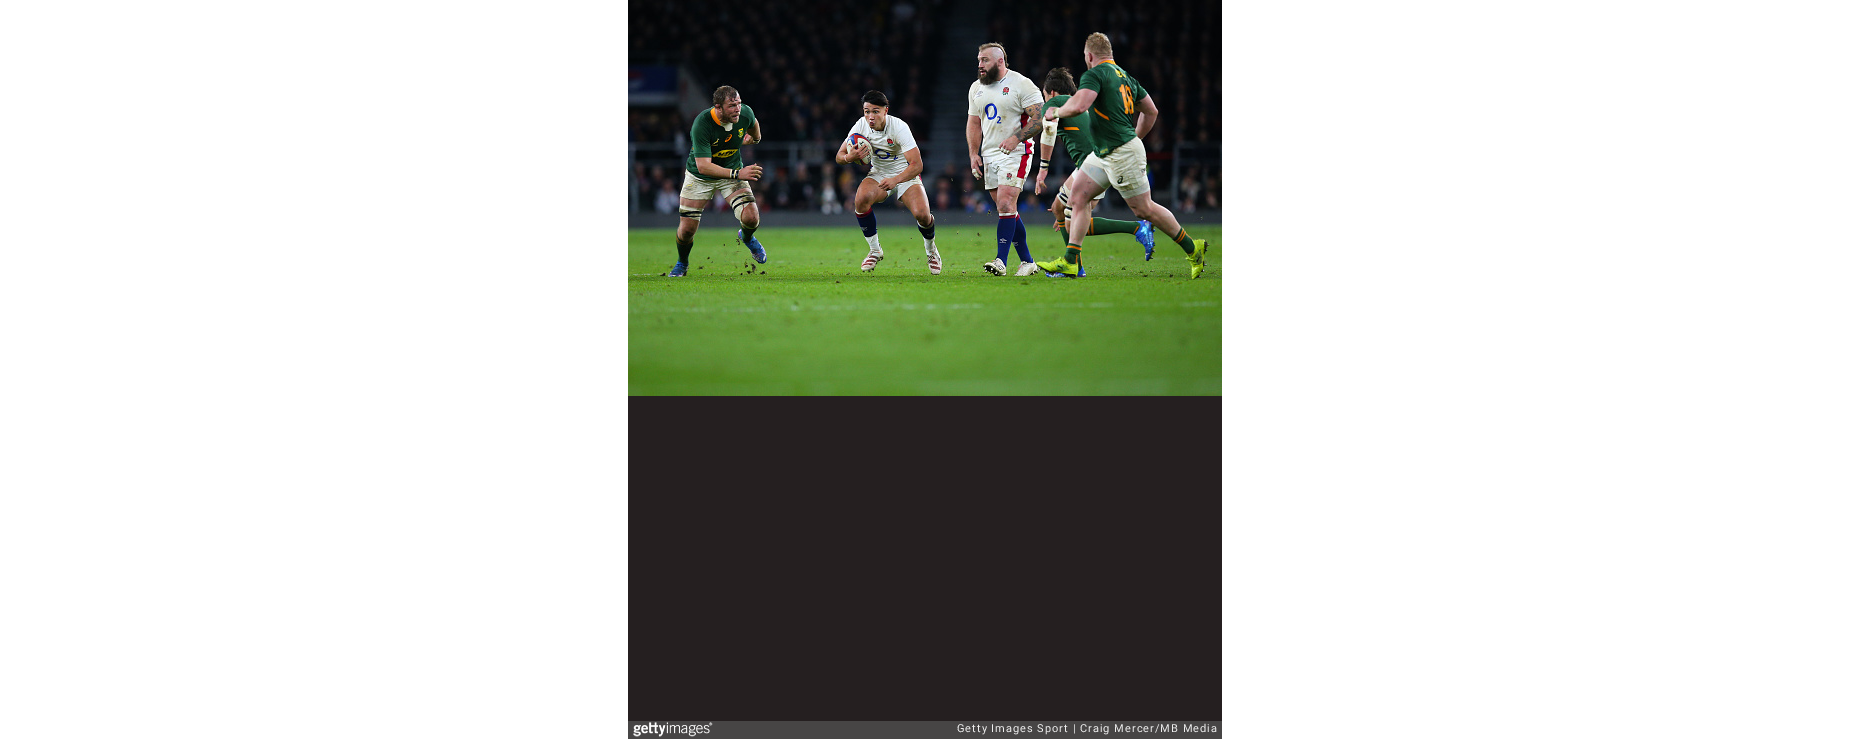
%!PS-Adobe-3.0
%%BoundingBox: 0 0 1849 739
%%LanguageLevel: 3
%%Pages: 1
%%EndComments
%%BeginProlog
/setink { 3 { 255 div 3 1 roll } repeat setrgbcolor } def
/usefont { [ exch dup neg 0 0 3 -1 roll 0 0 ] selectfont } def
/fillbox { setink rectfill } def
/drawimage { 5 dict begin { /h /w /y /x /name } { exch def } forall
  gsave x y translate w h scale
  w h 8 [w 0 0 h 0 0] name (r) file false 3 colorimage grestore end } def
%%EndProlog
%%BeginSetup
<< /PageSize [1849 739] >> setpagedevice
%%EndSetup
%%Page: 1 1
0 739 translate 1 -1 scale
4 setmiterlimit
0 0 1849 739 255 255 255 fillbox
628 396 594 325 37 31 32 fillbox
(assets/img1.rgb) 628 0 594 396 drawimage
628 721 594 18 71 69 69 fillbox
(assets/img2.rgb) 633 722 80 15 drawimage
/Roboto-Regular 11 usefont
238 238 238 setink
957 732 moveto 1 0 (Getty Images Sport | Craig Mercer/MB Media) ashow
showpage
%%EOF
